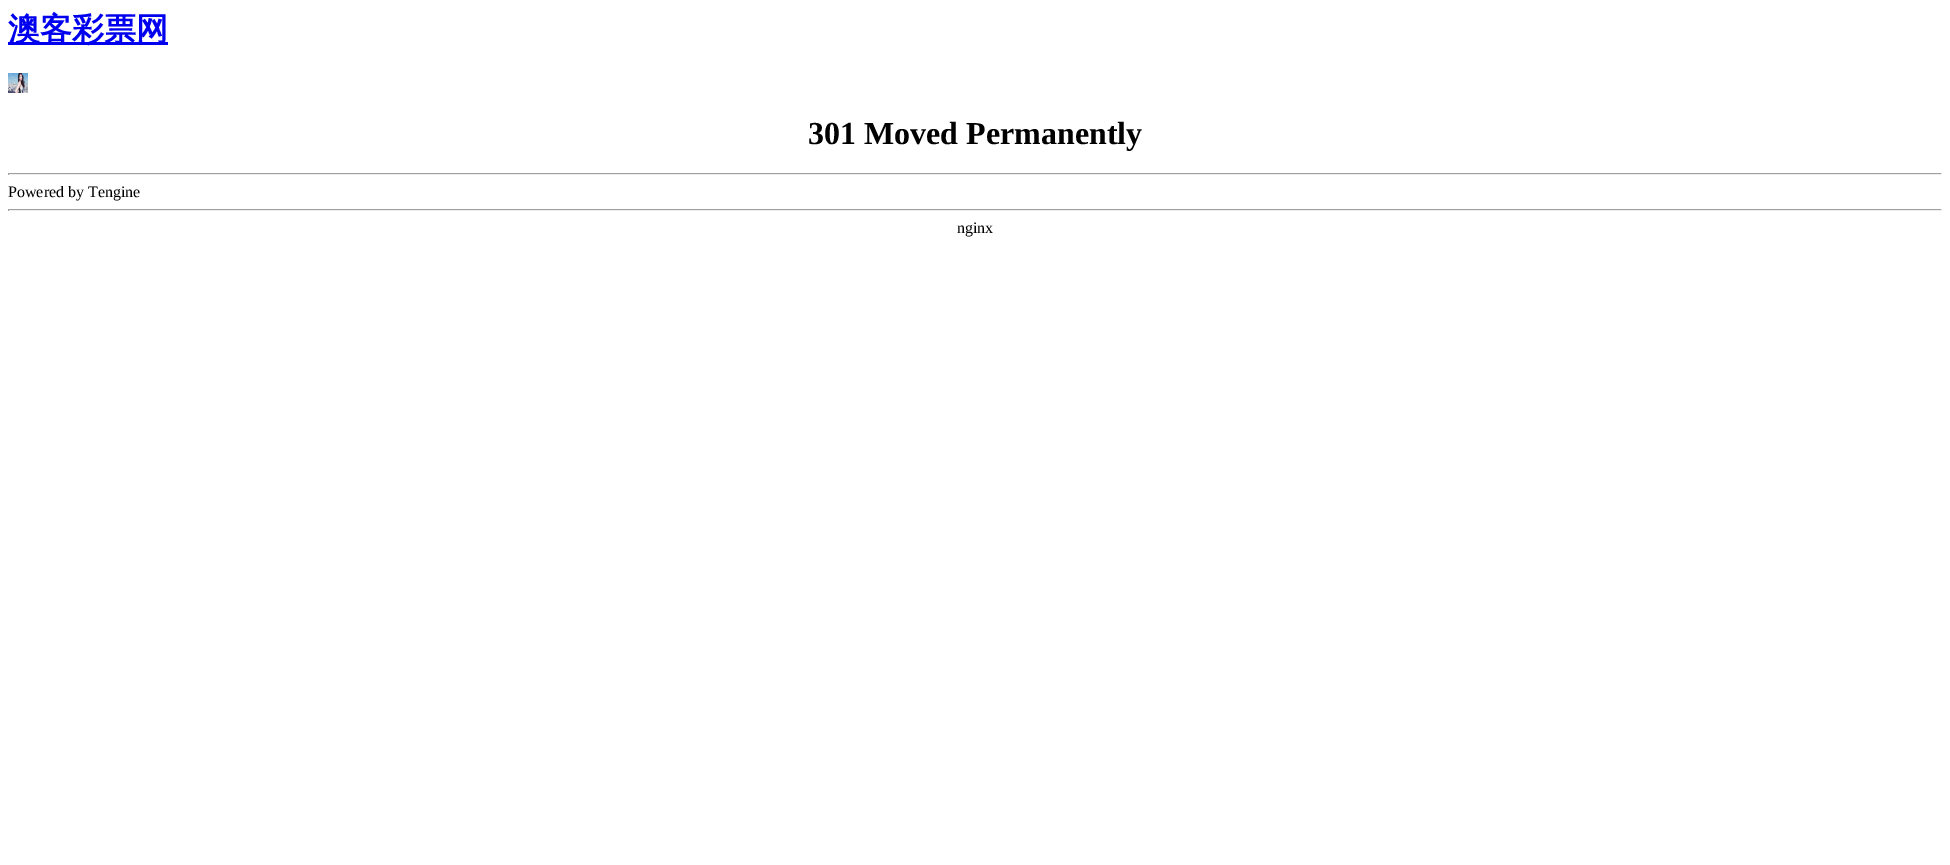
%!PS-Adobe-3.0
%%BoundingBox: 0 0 1950 865
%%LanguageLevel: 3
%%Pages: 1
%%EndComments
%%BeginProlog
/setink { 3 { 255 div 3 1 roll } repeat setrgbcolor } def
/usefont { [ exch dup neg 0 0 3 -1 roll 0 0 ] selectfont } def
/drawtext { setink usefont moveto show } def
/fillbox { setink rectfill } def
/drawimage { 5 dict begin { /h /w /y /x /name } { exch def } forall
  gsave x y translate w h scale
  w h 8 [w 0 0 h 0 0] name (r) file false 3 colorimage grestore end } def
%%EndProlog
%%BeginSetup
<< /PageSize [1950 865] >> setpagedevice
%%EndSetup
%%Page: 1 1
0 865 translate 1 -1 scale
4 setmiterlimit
0 0 1950 865 255 255 255 fillbox
8 42 160 3 0 0 238 fillbox
(澳客彩票网) 8 40 /WenQuanYiZenHei-Bold 32 0 0 238 drawtext
(assets/img1.rgb) 8 73 20 20 drawimage
(301 Moved Permanently) 808 144 /LiberationSerif-Bold 32 0 0 0 drawtext
8 173 1934 1 159 159 159 fillbox
1941 173 1 2 238 238 238 fillbox
8 174 1934 1 238 238 238 fillbox
8 173 1 2 159 159 159 fillbox
(Powered by Tengine) 8 197 /LiberationSerif-Regular 16 0 0 0 drawtext
8 209 1934 1 159 159 159 fillbox
1941 209 1 2 238 238 238 fillbox
8 210 1934 1 238 238 238 fillbox
8 209 1 2 159 159 159 fillbox
(nginx) 957 233 /LiberationSerif-Regular 16 0 0 0 drawtext
showpage
%%EOF
